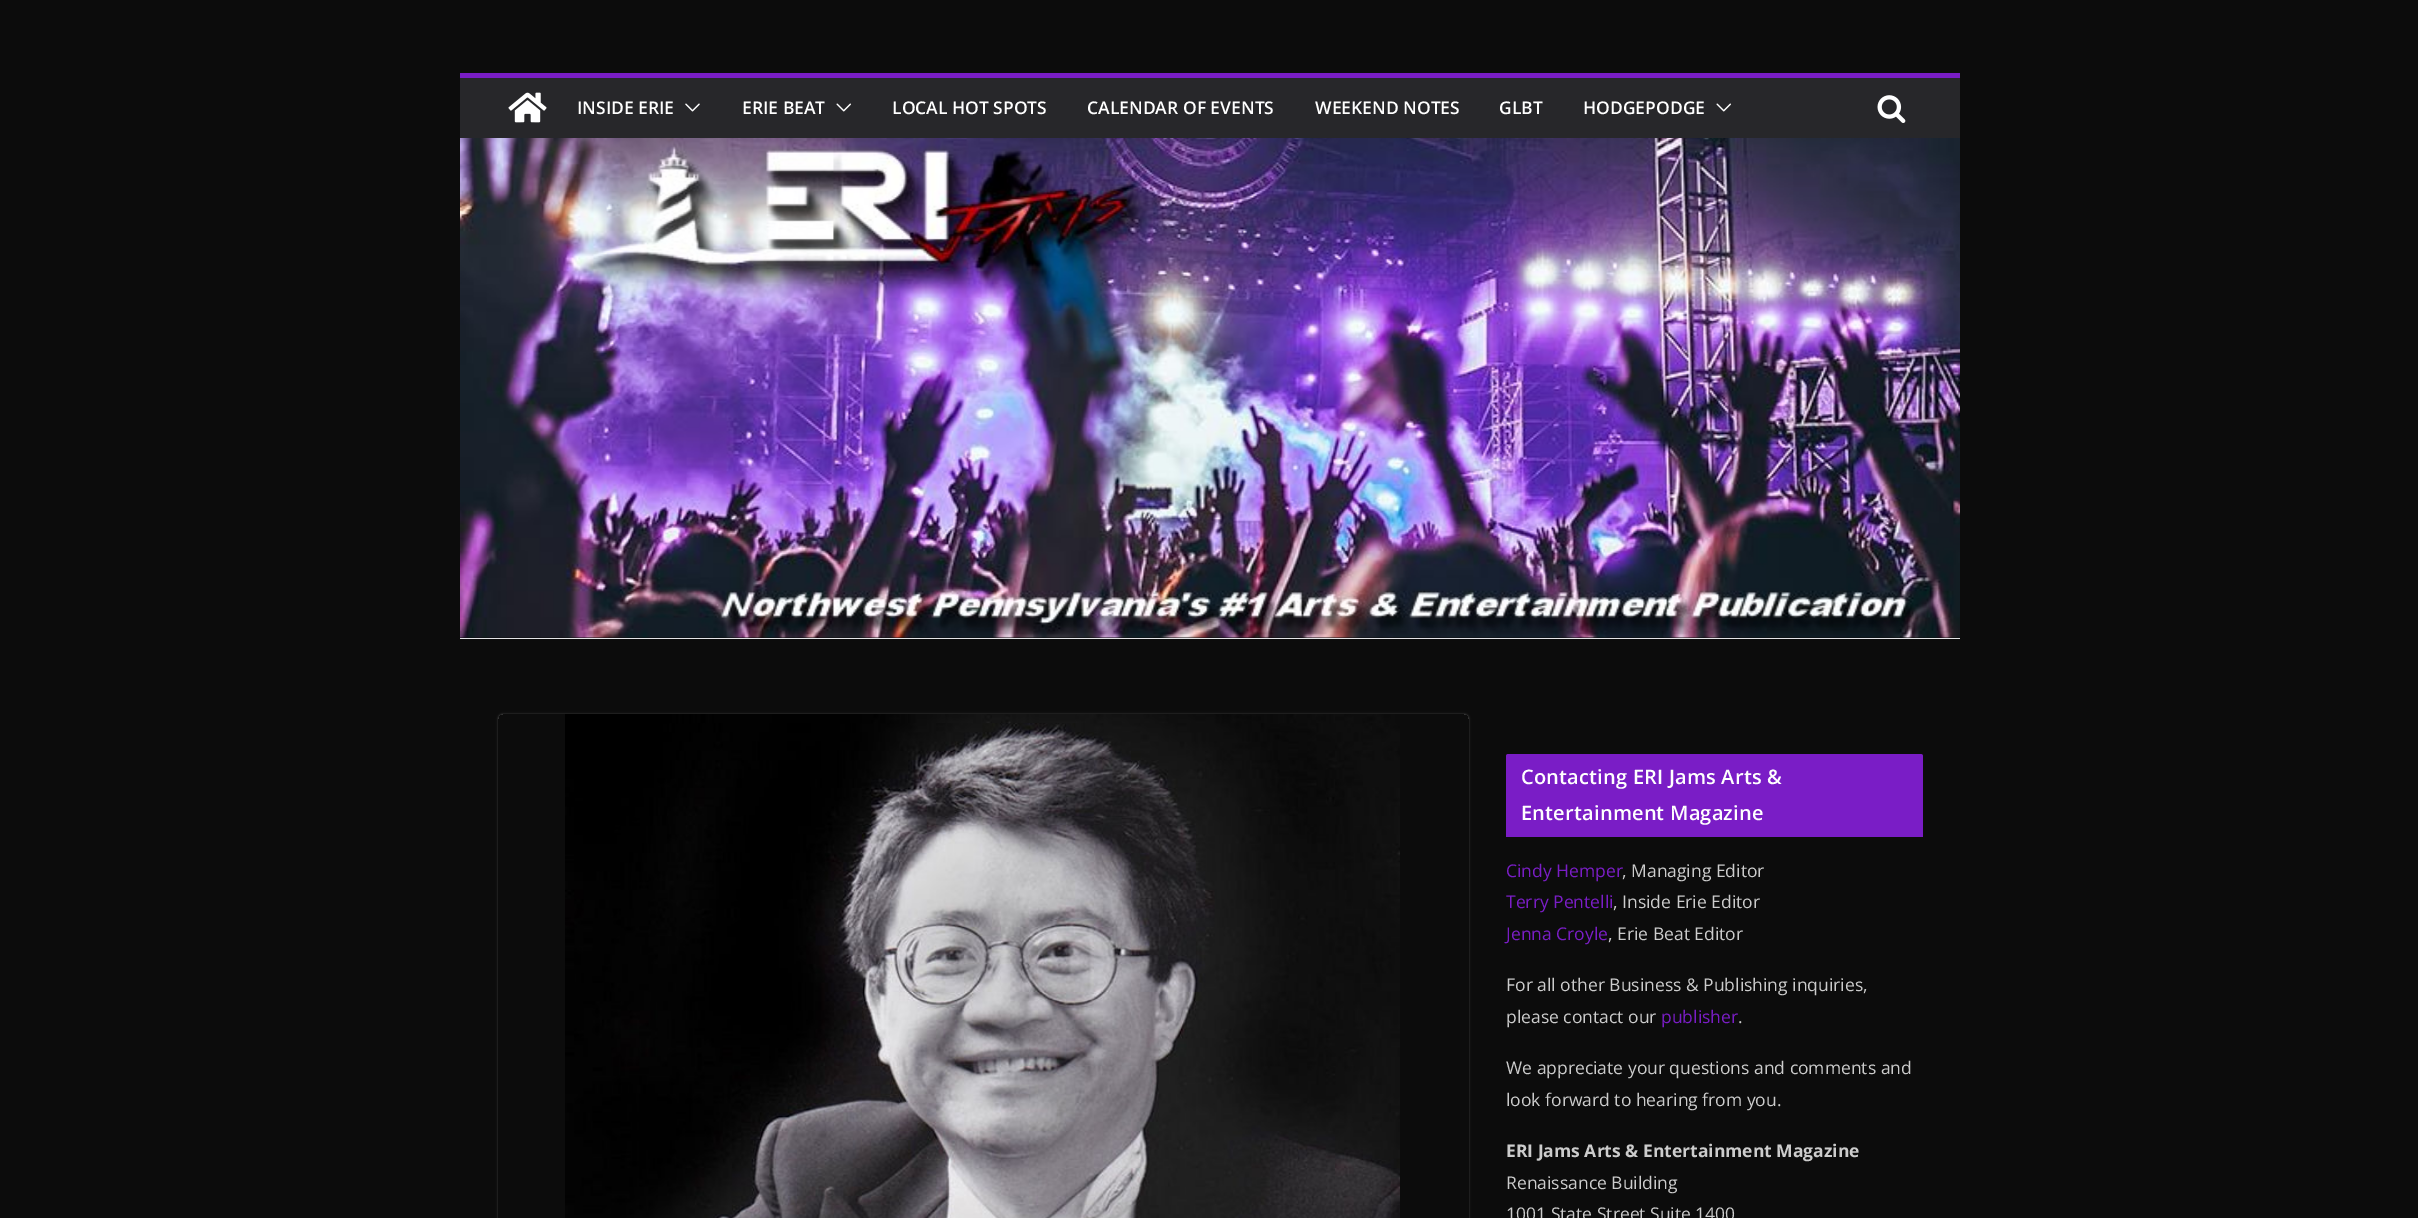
%!PS-Adobe-3.0
%%BoundingBox: 0 0 2418 1218
%%LanguageLevel: 3
%%Pages: 1
%%EndComments
%%BeginProlog
/setink { 3 { 255 div 3 1 roll } repeat setrgbcolor } def
/usefont { [ exch dup neg 0 0 3 -1 roll 0 0 ] selectfont } def
/drawtext { setink usefont moveto show } def
/fillbox { setink rectfill } def
/setalpha { dup .setfillconstantalpha .setstrokeconstantalpha } def
/rrect { 5 dict begin { /r /h /w /y /x } { exch def } forall
  x r add y moveto x w add y 2 copy h add r arct x w add y h add x 1 index r arct
  x y h add x y r arct x y 2 copy exch w add exch r arct closepath end } def
/softshadow { 12 dict begin { /a /b /q /h /w /y /x } { exch def } forall gsave /was 0 def
  9 -2 -9 { dup b mul 4 div /e exch def 1 sub .425 mul 2.718 exch exp 1 add a .99 .min exch div /now exch def
    1 1 now sub 1 was sub div sub setalpha /was now def
    w h .min e 2 mul add 0 gt { x e sub y e sub w e 2 mul add h e 2 mul add
      q e add b .6 mul add w h .min 2 div e add .min 0 .max rrect fill } if } for grestore end } def
/drawimage { 5 dict begin { /h /w /y /x /name } { exch def } forall
  gsave x y translate w h scale
  w h 8 [w 0 0 h 0 0] name (r) file false 3 colorimage grestore end } def
%%EndProlog
%%BeginSetup
<< /PageSize [2418 1218] /PageUsesTransparency true >> setpagedevice
%%EndSetup
%%Page: 1 1
0 .pushpdf14devicefilter
0 1218 translate 1 -1 scale
4 setmiterlimit
0 0 2418 1218 12 12 12 fillbox
460 78 1500 60 39 39 42 fillbox
460 73 1500 5 122 29 198 fillbox
(assets/img1.rgb) 508 92 39 31 drawimage
(INSIDE ERIE) 577 114 /OpenSans-SemiBold 17.5 255 255 255 drawtext
(assets/img2.rgb) 685 103 15 9 drawimage
(ERIE BEAT) 742 114 /OpenSans-SemiBold 17.5 255 255 255 drawtext
(assets/img3.rgb) 836 103 15 9 drawimage
(LOCAL HOT SPOTS) 892 114 /OpenSans-SemiBold 17.5 255 255 255 drawtext
(CALENDAR OF EVENTS) 1087 114 /OpenSans-SemiBold 17.5 255 255 255 drawtext
(WEEKEND NOTES) 1315 114 /OpenSans-SemiBold 17.5 255 255 255 drawtext
(GLBT) 1499 114 /OpenSans-SemiBold 17.5 255 255 255 drawtext
(HODGEPODGE) 1583 114 /OpenSans-SemiBold 17.5 255 255 255 drawtext
(assets/img3.rgb) 1716 103 15 9 drawimage
(assets/img4.rgb) 1877 95 29 28 drawimage
(assets/img5.rgb) 460 138 1500 500 drawimage
460 638 1500 1 228 228 231 fillbox
gsave
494 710 moveto 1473 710 lineto 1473 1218 lineto 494 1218 lineto closepath 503 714 moveto 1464 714 lineto 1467 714 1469 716 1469 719 curveto 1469 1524 lineto 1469 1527 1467 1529 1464 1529 curveto 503 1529 lineto 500 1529 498 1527 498 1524 curveto 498 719 lineto 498 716 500 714 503 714 curveto closepath eoclip newpath
255 255 255 setink
498 714 971 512 5 1 0.24 softshadow
grestore
(assets/img6.rgb) 565 714 835 504 drawimage
1506 834 417 3 122 29 198 fillbox
1508.5 754 moveto 1920.5 754 lineto 1922 754 1923 755 1923 756.5 curveto 1923 834 lineto 1506 834 lineto 1506 756.5 lineto 1506 755 1507 754 1508.5 754 curveto closepath fill
/OpenSans-SemiBold 20 usefont
255 255 255 setink
1521 784 moveto 0.2 0 (Contacting ERI Jams Arts &) ashow
1521 820 moveto 0.2 0 (Entertainment Magazine) ashow
(Cindy Hemper) 1506 877 /OpenSans-Regular 17.5 122 29 198 drawtext
(, Managing Editor) 1622 877 /OpenSans-Regular 17.5 204 204 204 drawtext
(Terry Pentelli) 1506 908 /OpenSans-Regular 17.5 122 29 198 drawtext
(, Inside Erie Editor) 1613 908 /OpenSans-Regular 17.5 204 204 204 drawtext
(Jenna Croyle) 1506 940 /OpenSans-Regular 17.5 122 29 198 drawtext
(, Erie Beat Editor) 1608 940 /OpenSans-Regular 17.5 204 204 204 drawtext
(For all other Business & Publishing inquiries,) 1506 991 /OpenSans-Regular 17.5 204 204 204 drawtext
(please contact our) 1506 1023 /OpenSans-Regular 17.5 204 204 204 drawtext
(publisher) 1661 1023 /OpenSans-Regular 17.5 122 29 198 drawtext
(.) 1738 1023 /OpenSans-Regular 17.5 204 204 204 drawtext
(We appreciate your questions and comments and) 1506 1074 /OpenSans-Regular 17.5 204 204 204 drawtext
(look forward to hearing from you.) 1506 1106 /OpenSans-Regular 17.5 204 204 204 drawtext
(ERI Jams Arts & Entertainment Magazine) 1506 1157 /OpenSans-Bold 17.5 204 204 204 drawtext
(Renaissance Building) 1506 1189 /OpenSans-Regular 17.5 204 204 204 drawtext
(1001 State Street Suite 1400) 1506 1220 /OpenSans-Regular 17.5 204 204 204 drawtext
.poppdf14devicefilter showpage
%%EOF
